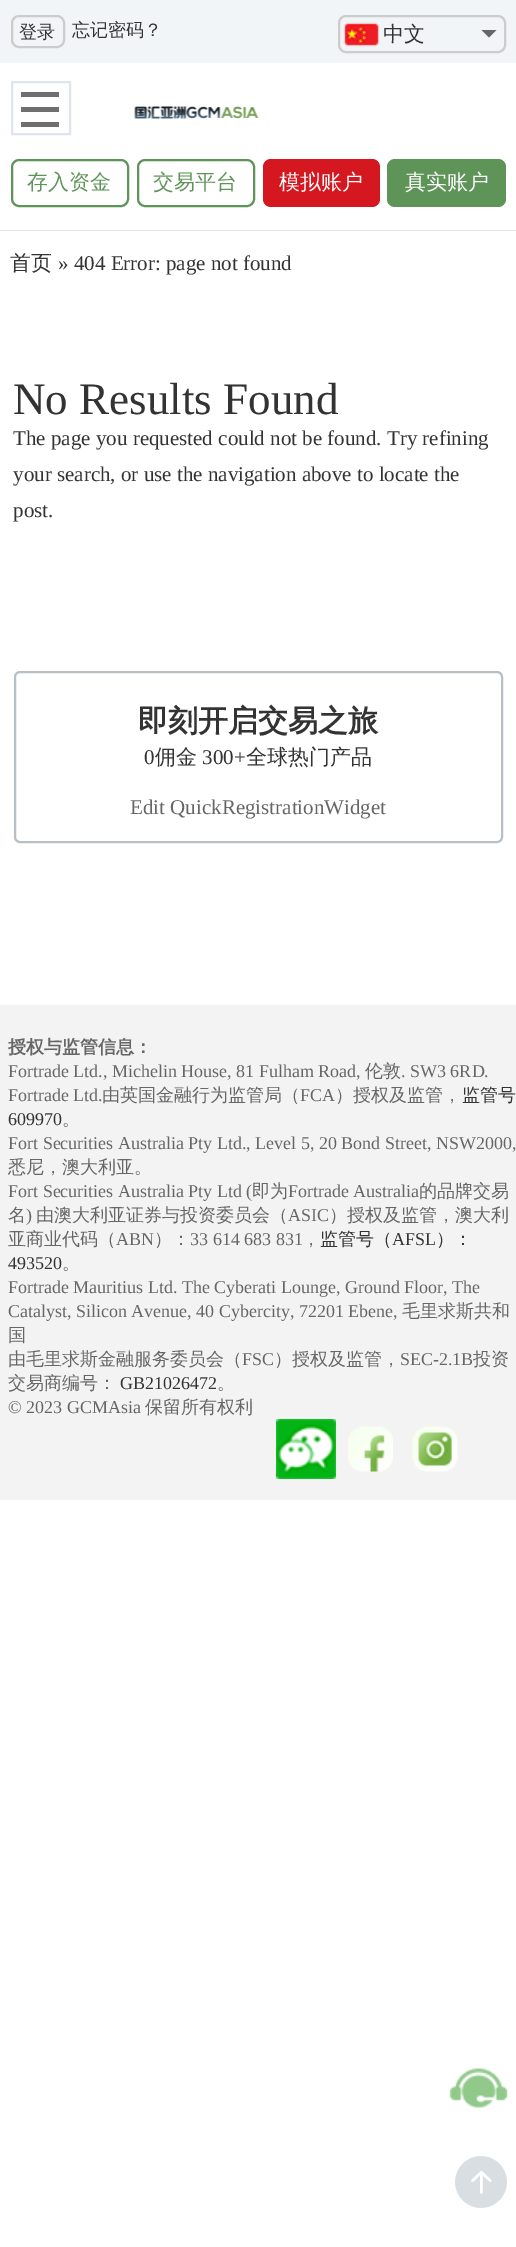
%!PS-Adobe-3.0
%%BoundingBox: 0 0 516 2247
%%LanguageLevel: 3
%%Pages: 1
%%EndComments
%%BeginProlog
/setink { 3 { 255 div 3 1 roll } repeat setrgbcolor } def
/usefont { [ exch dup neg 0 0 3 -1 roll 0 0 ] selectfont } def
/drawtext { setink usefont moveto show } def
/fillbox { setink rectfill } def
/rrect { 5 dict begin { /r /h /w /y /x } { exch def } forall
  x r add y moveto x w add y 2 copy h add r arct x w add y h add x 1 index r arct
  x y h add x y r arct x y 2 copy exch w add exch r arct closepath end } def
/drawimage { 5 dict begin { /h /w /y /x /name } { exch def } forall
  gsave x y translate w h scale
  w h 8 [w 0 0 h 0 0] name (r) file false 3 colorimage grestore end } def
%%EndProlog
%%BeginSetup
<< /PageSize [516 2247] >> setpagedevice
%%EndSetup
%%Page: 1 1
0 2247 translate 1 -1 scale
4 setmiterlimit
0 0 516 2247 255 255 255 fillbox
0 230 516 1 230 230 230 fillbox
0 0 516 63 242 245 247 fillbox
204 204 204 setink
2 setlinewidth
12 16 52 31 7 rrect stroke
(登录) 19 38 /WenQuanYiZenHei-Medium 18 51 51 51 drawtext
(忘记密码？) 72 36 /WenQuanYiZenHei-Medium 18 51 51 51 drawtext
204 204 204 setink
339 16 166 36 7 rrect stroke
(assets/img1.rgb) 343 22 37 25 drawimage
(中文) 383 41 /WenQuanYiZenHei-Medium 21 51 51 51 drawtext
102 102 102 setink
481.5 30 moveto 496.5 30 lineto 489 37.5 lineto closepath fill
222 229 239 setink
12 82 58 52 rectstroke
21 107 38 5 111 111 111 fillbox
21 92 38 5 111 111 111 fillbox
21 122 38 5 111 111 111 fillbox
(assets/img2.rgb) 134 106 125 13 drawimage
94 148 88 setink
12 160 116 46 7 rrect stroke
(存入资金) 27 189 /WenQuanYiZenHei-Medium 21 94 148 88 drawtext
138 160 116 46 7 rrect stroke
(交易平台) 153 189 /WenQuanYiZenHei-Medium 21 94 148 88 drawtext
213 24 32 setink
263 159 117 48 8 rrect fill
(模拟账户) 279 189 /WenQuanYiZenHei-Medium 21 255 255 255 drawtext
94 148 88 setink
387 159 119 48 8 rrect fill
(真实账户) 405 189 /WenQuanYiZenHei-Medium 21 255 255 255 drawtext
(首页) 10 270 /WenQuanYiZenHei-Medium 21 51 51 51 drawtext
(» 404 Error: page not found) 58 270 /LiberationSerif-Regular 21 51 51 51 drawtext
(No Results Found) 13 414 /LiberationSerif-Regular 45 51 51 51 drawtext
(The page you requested could not be found. Try refining) 13 445 /LiberationSerif-Regular 21 51 51 51 drawtext
(your search, or use the navigation above to locate the) 13 481 /LiberationSerif-Regular 21 51 51 51 drawtext
(post.) 13 517 /LiberationSerif-Regular 21 51 51 51 drawtext
185 192 197 setink
15 672 487 170 5 rrect stroke
(即刻开启交易之旅) 138 731 /WenQuanYiZenHei-Bold 30 51 51 51 drawtext
(0) 144 764 /LiberationSerif-Regular 21 51 51 51 drawtext
(佣金) 155 764 /WenQuanYiZenHei-Medium 21 51 51 51 drawtext
(300+) 202 764 /LiberationSerif-Regular 21 51 51 51 drawtext
(全球热门产品) 246 764 /WenQuanYiZenHei-Medium 21 51 51 51 drawtext
(Edit QuickRegistrationWidget) 130 814 /LiberationSerif-Regular 21 102 102 102 drawtext
0 1005 516 495 243 243 243 fillbox
(授权与监管信息：) 8 1053 /WenQuanYiZenHei-Bold 18 102 102 102 drawtext
(Fortrade Ltd., Michelin House, 81 Fulham Road,) 8 1077 /LiberationSerif-Regular 18 102 102 102 drawtext
(伦敦) 365 1077 /WenQuanYiZenHei-Medium 18 102 102 102 drawtext
(. SW3 6RD.) 401 1077 /LiberationSerif-Regular 18 102 102 102 drawtext
(Fortrade Ltd.) 8 1101 /LiberationSerif-Regular 18 102 102 102 drawtext
(由英国金融行为监管局（) 102 1101 /WenQuanYiZenHei-Medium 18 102 102 102 drawtext
(FCA) 300 1101 /LiberationSerif-Regular 18 102 102 102 drawtext
(）授权及监管，) 335 1101 /WenQuanYiZenHei-Medium 18 102 102 102 drawtext
(监管号) 462 1101 /WenQuanYiZenHei-Medium 18 51 51 51 drawtext
(609970) 8 1125 /LiberationSerif-Regular 18 51 51 51 drawtext
(。) 62 1125 /WenQuanYiZenHei-Medium 18 102 102 102 drawtext
(Fort Securities Australia Pty Ltd., Level 5, 20 Bond Street, NSW2000,) 8 1149 /LiberationSerif-Regular 18 102 102 102 drawtext
(悉尼，澳大利亚。) 8 1173 /WenQuanYiZenHei-Medium 18 102 102 102 drawtext
(Fort Securities Australia Pty Ltd \() 8 1197 /LiberationSerif-Regular 18 102 102 102 drawtext
(即为) 252 1197 /WenQuanYiZenHei-Medium 18 102 102 102 drawtext
(Fortrade Australia) 288 1197 /LiberationSerif-Regular 18 102 102 102 drawtext
(的品牌交易) 419 1197 /WenQuanYiZenHei-Medium 18 102 102 102 drawtext
(名) 8 1221 /WenQuanYiZenHei-Medium 18 102 102 102 drawtext
(\)) 26 1221 /LiberationSerif-Regular 18 102 102 102 drawtext
(由澳大利亚证券与投资委员会（) 36 1221 /WenQuanYiZenHei-Medium 18 102 102 102 drawtext
(ASIC) 288 1221 /LiberationSerif-Regular 18 102 102 102 drawtext
(）授权及监管，澳大利) 329 1221 /WenQuanYiZenHei-Medium 18 102 102 102 drawtext
(亚商业代码（) 8 1245 /WenQuanYiZenHei-Medium 18 102 102 102 drawtext
(ABN) 116 1245 /LiberationSerif-Regular 18 102 102 102 drawtext
(）：) 154 1245 /WenQuanYiZenHei-Medium 18 102 102 102 drawtext
(33 614 683 831) 190 1245 /LiberationSerif-Regular 18 102 102 102 drawtext
(，) 302 1245 /WenQuanYiZenHei-Medium 18 102 102 102 drawtext
(监管号（) 320 1245 /WenQuanYiZenHei-Medium 18 51 51 51 drawtext
(AFSL) 392 1245 /LiberationSerif-Regular 18 51 51 51 drawtext
(）：) 436 1245 /WenQuanYiZenHei-Medium 18 51 51 51 drawtext
(493520) 8 1269 /LiberationSerif-Regular 18 51 51 51 drawtext
(。) 62 1269 /WenQuanYiZenHei-Medium 18 102 102 102 drawtext
(Fortrade Mauritius Ltd. The Cyberati Lounge, Ground Floor, The) 8 1293 /LiberationSerif-Regular 18 102 102 102 drawtext
(Catalyst, Silicon Avenue, 40 Cybercity, 72201 Ebene,) 8 1317 /LiberationSerif-Regular 18 102 102 102 drawtext
(毛里求斯共和) 402 1317 /WenQuanYiZenHei-Medium 18 102 102 102 drawtext
(国) 8 1341 /WenQuanYiZenHei-Medium 18 102 102 102 drawtext
(由毛里求斯金融服务委员会（) 8 1365 /WenQuanYiZenHei-Medium 18 102 102 102 drawtext
(FSC) 242 1365 /LiberationSerif-Regular 18 102 102 102 drawtext
(）授权及监管，) 274 1365 /WenQuanYiZenHei-Medium 18 102 102 102 drawtext
(SEC-2.1B) 400 1365 /LiberationSerif-Regular 18 102 102 102 drawtext
(投资) 473 1365 /WenQuanYiZenHei-Medium 18 102 102 102 drawtext
(交易商编号：) 8 1389 /WenQuanYiZenHei-Medium 18 102 102 102 drawtext
(GB21026472) 120 1389 /LiberationSerif-Regular 18 51 51 51 drawtext
(。) 217 1389 /WenQuanYiZenHei-Medium 18 102 102 102 drawtext
(© 2023 GCMAsia) 8 1413 /LiberationSerif-Regular 18 102 102 102 drawtext
(保留所有权利) 145 1413 /WenQuanYiZenHei-Medium 18 102 102 102 drawtext
(assets/img3.rgb) 276 1419 60 60 drawimage
(assets/img4.rgb) 348 1426 45 46 drawimage
(assets/img5.rgb) 412 1426 46 46 drawimage
(assets/img6.rgb) 449 2068 59 40 drawimage
(assets/img7.rgb) 455 2156 52 52 drawimage
showpage
%%EOF
